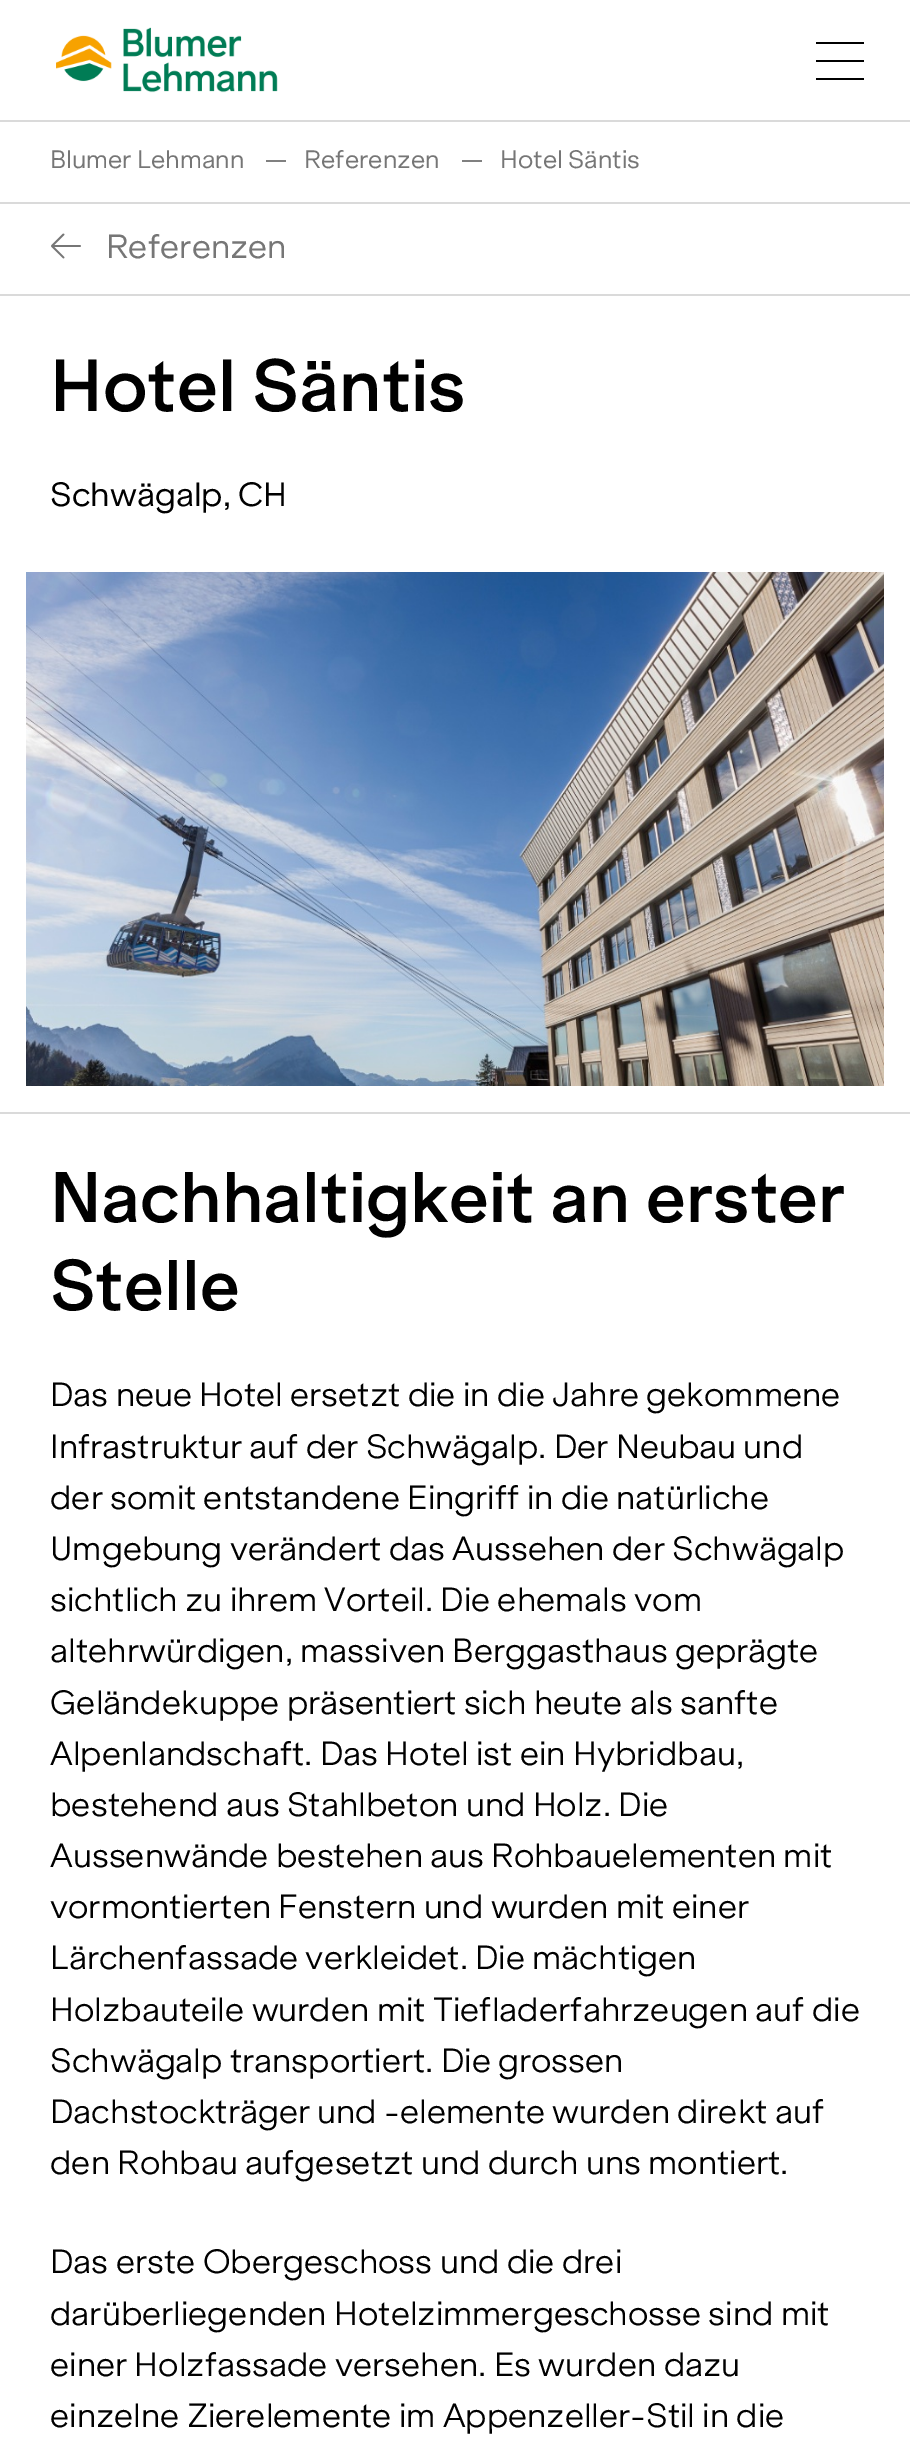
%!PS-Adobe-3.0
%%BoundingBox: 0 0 910 2453
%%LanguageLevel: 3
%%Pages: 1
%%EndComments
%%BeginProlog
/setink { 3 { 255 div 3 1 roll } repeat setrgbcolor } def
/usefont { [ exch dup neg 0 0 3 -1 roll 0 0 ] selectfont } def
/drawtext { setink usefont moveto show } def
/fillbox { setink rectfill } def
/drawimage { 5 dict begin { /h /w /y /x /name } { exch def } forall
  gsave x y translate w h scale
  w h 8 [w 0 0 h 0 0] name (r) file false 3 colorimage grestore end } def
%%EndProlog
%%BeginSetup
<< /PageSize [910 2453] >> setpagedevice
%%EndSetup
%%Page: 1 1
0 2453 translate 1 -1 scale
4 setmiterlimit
0 0 910 2453 255 255 255 fillbox
(assets/img1.rgb) 56 27 222 66 drawimage
816 60 48 2 0 0 0 fillbox
816 42 48 2 0 0 0 fillbox
816 78 48 2 0 0 0 fillbox
0 120 910 2 218 218 218 fillbox
0 202 910 2 218 218 218 fillbox
(Blumer Lehmann) 50 168 /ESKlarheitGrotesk-Regular 24 118 118 118 drawtext
266 160 20 2 128 128 128 fillbox
(Referenzen) 304 168 /ESKlarheitGrotesk-Regular 24 118 118 118 drawtext
462 160 20 2 128 128 128 fillbox
(Hotel Säntis) 500 168 /ESKlarheitGrotesk-Regular 24 118 118 118 drawtext
0 1112 910 2 218 218 218 fillbox
0 294 910 2 218 218 218 fillbox
(assets/img2.rgb) 51 233 30 26 drawimage
(Referenzen) 106 258 /ESKlarheitGrotesk-Regular 32 118 118 118 drawtext
(Hotel Säntis) 50 411 /ESKlarheitGrotesk-SemiBold 70 0 0 0 drawtext
(Schwägalp, CH) 50 506 /ESKlarheitGrotesk-Regular 32 0 0 0 drawtext
(assets/img3.rgb) 26 572 858 514 drawimage
(Nachhaltigkeit an erster) 50 1222 /ESKlarheitGrotesk-SemiBold 68 0 0 0 drawtext
(Stelle) 50 1310 /ESKlarheitGrotesk-SemiBold 68 0 0 0 drawtext
(Das neue Hotel ersetzt die in die Jahre gekommene) 50 1406 /ESKlarheitGrotesk-Light 32 0 0 0 drawtext
(Infrastruktur auf der Schwägalp. Der Neubau und) 50 1458 /ESKlarheitGrotesk-Light 32 0 0 0 drawtext
(der somit entstandene Eingriff in die natürliche) 50 1509 /ESKlarheitGrotesk-Light 32 0 0 0 drawtext
(Umgebung verändert das Aussehen der Schwägalp) 50 1560 /ESKlarheitGrotesk-Light 32 0 0 0 drawtext
(sichtlich zu ihrem Vorteil. Die ehemals vom) 50 1611 /ESKlarheitGrotesk-Light 32 0 0 0 drawtext
(altehrwürdigen, massiven Berggasthaus geprägte) 50 1662 /ESKlarheitGrotesk-Light 32 0 0 0 drawtext
(Geländekuppe präsentiert sich heute als sanfte) 50 1714 /ESKlarheitGrotesk-Light 32 0 0 0 drawtext
(Alpenlandschaft. Das Hotel ist ein Hybridbau,) 50 1765 /ESKlarheitGrotesk-Light 32 0 0 0 drawtext
(bestehend aus Stahlbeton und Holz. Die) 50 1816 /ESKlarheitGrotesk-Light 32 0 0 0 drawtext
(Aussenwände bestehen aus Rohbauelementen mit) 50 1867 /ESKlarheitGrotesk-Light 32 0 0 0 drawtext
(vormontierten Fenstern und wurden mit einer) 50 1918 /ESKlarheitGrotesk-Light 32 0 0 0 drawtext
(Lärchenfassade verkleidet. Die mächtigen) 50 1969 /ESKlarheitGrotesk-Light 32 0 0 0 drawtext
(Holzbauteile wurden mit Tiefladerfahrzeugen auf die) 50 2021 /ESKlarheitGrotesk-Light 32 0 0 0 drawtext
(Schwägalp transportiert. Die grossen) 50 2072 /ESKlarheitGrotesk-Light 32 0 0 0 drawtext
(Dachstockträger und -elemente wurden direkt auf) 50 2123 /ESKlarheitGrotesk-Light 32 0 0 0 drawtext
(den Rohbau aufgesetzt und durch uns montiert.) 50 2174 /ESKlarheitGrotesk-Light 32 0 0 0 drawtext
(Das erste Obergeschoss und die drei) 50 2273 /ESKlarheitGrotesk-Light 32 0 0 0 drawtext
(darüberliegenden Hotelzimmergeschosse sind mit) 50 2325 /ESKlarheitGrotesk-Light 32 0 0 0 drawtext
(einer Holzfassade versehen. Es wurden dazu) 50 2376 /ESKlarheitGrotesk-Light 32 0 0 0 drawtext
(einzelne Zierelemente im Appenzeller-Stil in die) 50 2427 /ESKlarheitGrotesk-Light 32 0 0 0 drawtext
showpage
%%EOF
